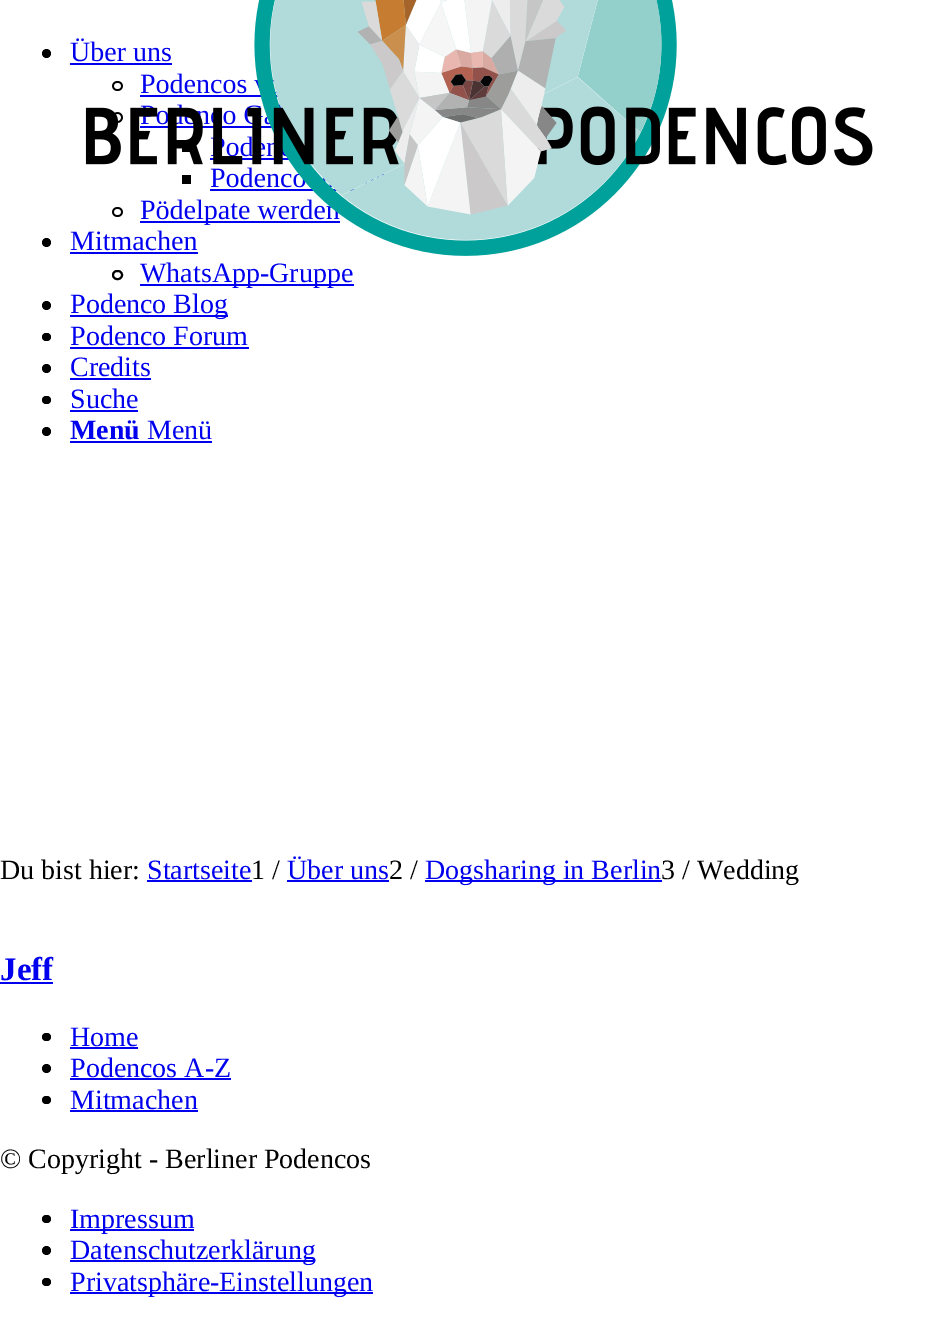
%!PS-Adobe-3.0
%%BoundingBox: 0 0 952 1343
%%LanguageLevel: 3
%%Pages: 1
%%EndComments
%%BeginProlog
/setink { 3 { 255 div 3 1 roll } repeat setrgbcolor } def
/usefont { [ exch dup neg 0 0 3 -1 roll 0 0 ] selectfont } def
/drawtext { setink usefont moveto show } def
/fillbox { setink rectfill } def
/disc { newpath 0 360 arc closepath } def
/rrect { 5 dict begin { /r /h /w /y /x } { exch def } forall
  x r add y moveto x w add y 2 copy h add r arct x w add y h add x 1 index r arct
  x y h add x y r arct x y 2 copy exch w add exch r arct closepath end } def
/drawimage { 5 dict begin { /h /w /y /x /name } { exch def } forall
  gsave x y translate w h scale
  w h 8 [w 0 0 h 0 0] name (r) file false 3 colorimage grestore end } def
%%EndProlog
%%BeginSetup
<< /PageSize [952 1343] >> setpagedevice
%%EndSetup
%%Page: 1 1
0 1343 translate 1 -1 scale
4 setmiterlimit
0 0 952 1343 255 255 255 fillbox
(Über uns) 70 61 /LiberationSerif-Regular 28 0 0 238 drawtext
70 63 102 2 0 0 238 fillbox
0 0 0 setink
2 setlinewidth
113 82 9 8 4 rrect stroke
(Podencos) 140 93 /LiberationSerif-Regular 28 0 0 238 drawtext
140 95 138 2 0 0 238 fillbox
0 0 0 setink
117.5 117.5 4.5 disc stroke
(o) 156 124 /LiberationSerif-Regular 28 0 0 238 drawtext
140 126 132 2 0 0 238 fillbox
(o) 222 124 /LiberationSerif-Regular 28 0 0 238 drawtext
182 148 9 4 0 0 0 fillbox
(od) 226 156 /LiberationSerif-Regular 28 0 0 238 drawtext
210 158 204 2 0 0 238 fillbox
182 175 9 9 0 0 0 fillbox
(Podenc) 210 187 /LiberationSerif-Regular 28 0 0 238 drawtext
210 189 145 2 0 0 238 fillbox
0 0 0 setink
113 208 9 8 4 rrect stroke
140 221 200 2 0 0 238 fillbox
(Pödelpate werden) 140 219 /LiberationSerif-Regular 28 0 0 238 drawtext
(Mitmachen) 70 250 /LiberationSerif-Regular 28 0 0 238 drawtext
70 252 128 2 0 0 238 fillbox
(assets/img1.rgb) 85 0 788 256 drawimage
0 0 0 setink
46.5 53.5 4.5 disc fill
46.5 242.5 4.5 disc fill
113 271 9 8 4 rrect stroke
140 284 214 2 0 0 238 fillbox
(WhatsApp-Gruppe) 140 282 /LiberationSerif-Regular 28 0 0 238 drawtext
0 0 0 setink
46.5 305.5 4.5 disc fill
70 315 158 2 0 0 238 fillbox
(Podenco Blog) 70 313 /LiberationSerif-Regular 28 0 0 238 drawtext
0 0 0 setink
42 333 9 8 4 rrect fill
(Podenco Forum) 70 345 /LiberationSerif-Regular 28 0 0 238 drawtext
70 347 179 2 0 0 238 fillbox
0 0 0 setink
46.5 368.5 4.5 disc fill
(Credits) 70 376 /LiberationSerif-Regular 28 0 0 238 drawtext
70 378 81 2 0 0 238 fillbox
0 0 0 setink
42 396 9 8 4 rrect fill
(Suche) 70 408 /LiberationSerif-Regular 28 0 0 238 drawtext
70 410 68 2 0 0 238 fillbox
0 0 0 setink
46.5 431.5 4.5 disc fill
(Menü) 70 439 /LiberationSerif-Bold 28 0 0 238 drawtext
70 441 142 2 0 0 238 fillbox
(Menü) 147 439 /LiberationSerif-Regular 28 0 0 238 drawtext
(Du bist hier:) 0 879 /LiberationSerif-Regular 28 0 0 0 drawtext
(Startseite) 147 879 /LiberationSerif-Regular 28 0 0 238 drawtext
147 880 105 2 0 0 238 fillbox
(1 /) 251 879 /LiberationSerif-Regular 28 0 0 0 drawtext
(Über uns) 287 879 /LiberationSerif-Regular 28 0 0 238 drawtext
(2 /) 389 879 /LiberationSerif-Regular 28 0 0 0 drawtext
287 880 102 2 0 0 238 fillbox
425 880 237 2 0 0 238 fillbox
(Dogsharing in Berlin) 425 879 /LiberationSerif-Regular 28 0 0 238 drawtext
(3 / Wedding) 661 879 /LiberationSerif-Regular 28 0 0 0 drawtext
(Jeff) 0 980 /LiberationSerif-Bold 33 0 0 238 drawtext
0 982 53 2 0 0 238 fillbox
0 0 0 setink
42 1033 9 8 4 rrect fill
(Home) 70 1046 /LiberationSerif-Regular 28 0 0 238 drawtext
70 1047 68 2 0 0 238 fillbox
0 0 0 setink
46.5 1068.5 4.5 disc fill
(Podencos A-Z) 70 1077 /LiberationSerif-Regular 28 0 0 238 drawtext
70 1078 161 2 0 0 238 fillbox
0 0 0 setink
42 1096 9 8 4 rrect fill
(Mitmachen) 70 1109 /LiberationSerif-Regular 28 0 0 238 drawtext
70 1110 128 2 0 0 238 fillbox
(© Copyright - Berliner Podencos) 0 1168 /LiberationSerif-Regular 28 0 0 0 drawtext
42 1215 9 8 4 rrect fill
70 1229 124 2 0 0 238 fillbox
(Impressum) 70 1228 /LiberationSerif-Regular 28 0 0 238 drawtext
0 0 0 setink
46.5 1250.5 4.5 disc fill
70 1260 245 2 0 0 238 fillbox
(Datenschutzerklärung) 70 1259 /LiberationSerif-Regular 28 0 0 238 drawtext
0 0 0 setink
42 1278 9 8 4 rrect fill
70 1292 303 2 0 0 238 fillbox
(Privatsphäre-Einstellungen) 70 1291 /LiberationSerif-Regular 28 0 0 238 drawtext
showpage
%%EOF
